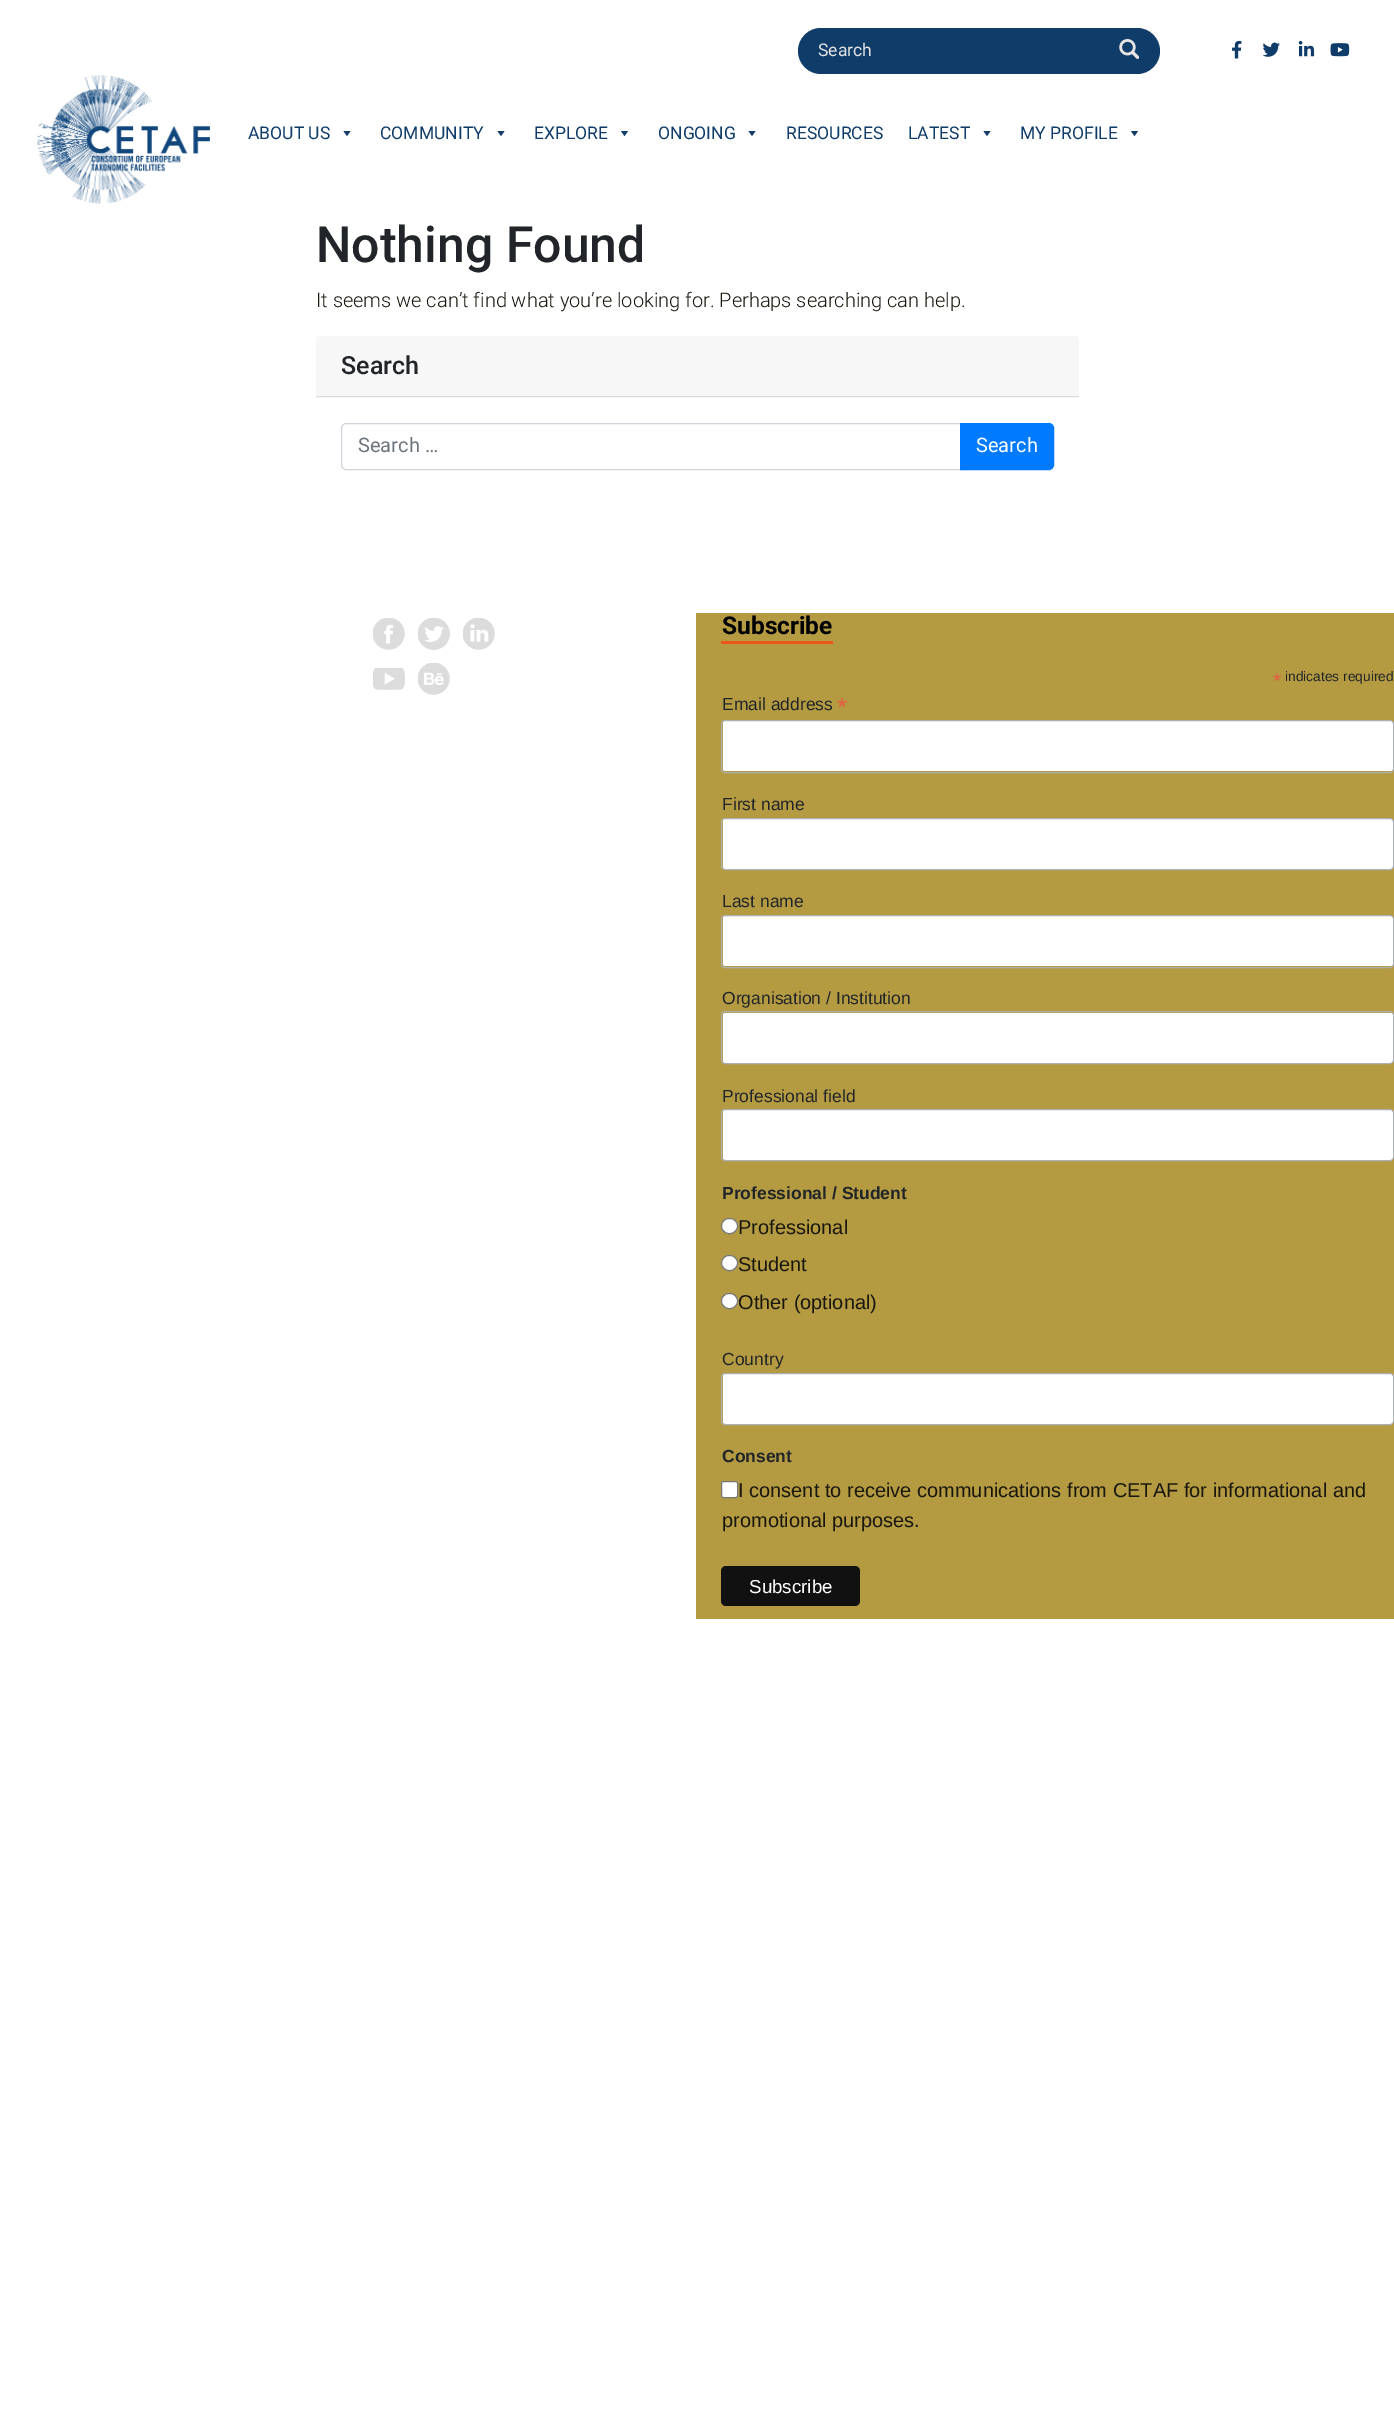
%!PS-Adobe-3.0
%%BoundingBox: 0 0 1394 2434
%%LanguageLevel: 3
%%Pages: 1
%%EndComments
%%BeginProlog
/setink { 3 { 255 div 3 1 roll } repeat setrgbcolor } def
/usefont { [ exch dup neg 0 0 3 -1 roll 0 0 ] selectfont } def
/drawtext { setink usefont moveto show } def
/fillbox { setink rectfill } def
/rrect { 5 dict begin { /r /h /w /y /x } { exch def } forall
  x r add y moveto x w add y 2 copy h add r arct x w add y h add x 1 index r arct
  x y h add x y r arct x y 2 copy exch w add exch r arct closepath end } def
/drawimage { 5 dict begin { /h /w /y /x /name } { exch def } forall
  gsave x y translate w h scale
  w h 8 [w 0 0 h 0 0] name (r) file false 3 colorimage grestore end } def
%%EndProlog
%%BeginSetup
<< /PageSize [1394 2434] >> setpagedevice
%%EndSetup
%%Page: 1 1
0 2434 translate 1 -1 scale
4 setmiterlimit
0 0 1394 2434 255 255 255 fillbox
16 60 106 setink
798 28 362 46 23 rrect fill
(Search) 818 56 /Roboto-Regular 17.5 228 228 228 drawtext
(assets/img1.rgb) 1119 39 20 20 drawimage
(assets/img2.rgb) 1232 40 10 19 drawimage
(assets/img3.rgb) 1262 42 18 15 drawimage
(assets/img4.rgb) 1298 41 17 16 drawimage
(assets/img5.rgb) 1330 43 20 14 drawimage
(assets/img6.rgb) 37 75 173 129 drawimage
(ABOUT US) 248 139 /Roboto-Regular 17.5 16 60 106 drawtext
350.5 131 moveto 347 136 lineto 343.5 131 lineto closepath fill
(COMMUNITY) 380 139 /Roboto-Regular 17.5 16 60 106 drawtext
504.5 131 moveto 501 136 lineto 497.5 131 lineto closepath fill
(EXPLORE) 534 139 /Roboto-Regular 17.5 16 60 106 drawtext
628 131 moveto 624.5 136 lineto 621 131 lineto closepath fill
(ONGOING) 658 139 /Roboto-Regular 17.5 16 60 106 drawtext
755.5 131 moveto 752 136 lineto 748.5 131 lineto closepath fill
(RESOURCES) 786 139 /Roboto-Regular 17.5 16 60 106 drawtext
(LATEST) 908 139 /Roboto-Regular 17.5 16 60 106 drawtext
990.5 131 moveto 987 136 lineto 983.5 131 lineto closepath fill
(MY PROFILE) 1020 139 /Roboto-Regular 17.5 16 60 106 drawtext
1138 131 moveto 1134.5 136 lineto 1131 131 lineto closepath fill
(Nothing Found) 316 262 /Roboto-Medium 50 33 37 41 drawtext
(It seems we can’t find what you’re looking for. Perhaps searching can help.) 316 307 /Roboto-Light 20 26 24 14 drawtext
247 247 247 setink
320 336 moveto 1075 336 lineto 1077 336 1079 338 1079 340 curveto 1079 398 lineto 316 398 lineto 316 340 lineto 316 338 318 336 320 336 curveto closepath fill
316 396 763 1 216 216 216 fillbox
(Search) 341 374 /Roboto-Medium 25 33 37 41 drawtext
206 212 218 setink
346 423.5 moveto 960.5 423.5 lineto 960.5 469.5 lineto 346 469.5 lineto 343.5 469.5 341.5 467.5 341.5 465 curveto 341.5 428 lineto 341.5 425.5 343.5 423.5 346 423.5 curveto closepath stroke
(Search …) 358 452 /Roboto-Regular 20 108 117 125 drawtext
0 123 255 setink
960.5 423.5 moveto 1049 423.5 lineto 1051.5 423.5 1053.5 425.5 1053.5 428 curveto 1053.5 465 lineto 1053.5 467.5 1051.5 469.5 1049 469.5 curveto 960.5 469.5 lineto closepath gsave fill grestore
stroke
(Search) 976 452 /Roboto-Regular 20 255 255 255 drawtext
(assets/img7.rgb) 373 618 32 32 drawimage
(assets/img8.rgb) 418 618 32 32 drawimage
(assets/img9.rgb) 463 618 32 32 drawimage
(assets/img10.rgb) 373 668 32 22 drawimage
(assets/img11.rgb) 418 663 32 32 drawimage
696 613 698 1006 180 155 66 fillbox
721 641 112 3 236 85 25 fillbox
(Subscribe) 722 634 /Roboto-Bold 24.5 0 0 0 drawtext
(*) 1273 688 /LiberationSans-Regular 21 232 92 65 drawtext
(indicates required) 1285 681 /LiberationSans-Regular 13.75 33 37 41 drawtext
(Email address) 722 710 /LiberationSans-Regular 17.5 33 37 41 drawtext
(*) 837 716 /LiberationSans-Regular 26 232 92 65 drawtext
255 255 255 setink
723 721 670 50 2.5 rrect fill
171 176 178 setink
721.5 720.5 672 52 3.5 rrect stroke
(First name) 722 810 /LiberationSans-Regular 17.5 33 37 41 drawtext
255 255 255 setink
723 819 670 50 2.5 rrect fill
171 176 178 setink
721.5 818.5 672 51 3.5 rrect stroke
(Last name) 722 907 /LiberationSans-Regular 17.5 33 37 41 drawtext
255 255 255 setink
723 916 670 50 2.5 rrect fill
171 176 178 setink
721.5 915.5 672 52 3.5 rrect stroke
(Organisation / Institution) 722 1004 /LiberationSans-Regular 17.5 33 37 41 drawtext
255 255 255 setink
723 1013 670 50 2.5 rrect fill
171 176 178 setink
721.5 1011.5 672 52 3.5 rrect stroke
(Professional field) 722 1102 /LiberationSans-Regular 17.5 33 37 41 drawtext
255 255 255 setink
723 1110 670 50 2.5 rrect fill
171 176 178 setink
721.5 1109.5 672 51 3.5 rrect stroke
(Professional / Student) 722 1199 /LiberationSans-Bold 17.5 33 37 41 drawtext
255 255 255 setink
721.5 1218.5 16 15 7.5 rrect gsave fill grestore
118 118 118 setink
stroke
(Professional) 738 1234 /LiberationSans-Regular 20 26 24 14 drawtext
255 255 255 setink
721.5 1255.5 16 15 7.5 rrect gsave fill grestore
118 118 118 setink
stroke
(Student) 738 1271 /LiberationSans-Regular 20 26 24 14 drawtext
255 255 255 setink
721.5 1293.5 16 15 7.5 rrect gsave fill grestore
118 118 118 setink
stroke
(Other \(optional\)) 738 1309 /LiberationSans-Regular 20 26 24 14 drawtext
(Country) 722 1365 /LiberationSans-Regular 17.5 33 37 41 drawtext
255 255 255 setink
723 1374 670 50 2.5 rrect fill
171 176 178 setink
721.5 1373.5 672 51 3.5 rrect stroke
(Consent) 722 1462 /LiberationSans-Bold 17.5 33 37 41 drawtext
255 255 255 setink
721.5 1481.5 16 16 2 rrect gsave fill grestore
118 118 118 setink
stroke
(I consent to receive communications from CETAF for informational and) 738 1497 /LiberationSans-Regular 20 26 24 14 drawtext
(promotional purposes.) 722 1527 /LiberationSans-Regular 20 26 24 14 drawtext
17 17 17 setink
721 1566 139 40 5 rrect fill
(Subscribe) 749 1593 /LiberationSans-Regular 18.75 255 255 255 drawtext
showpage
%%EOF
